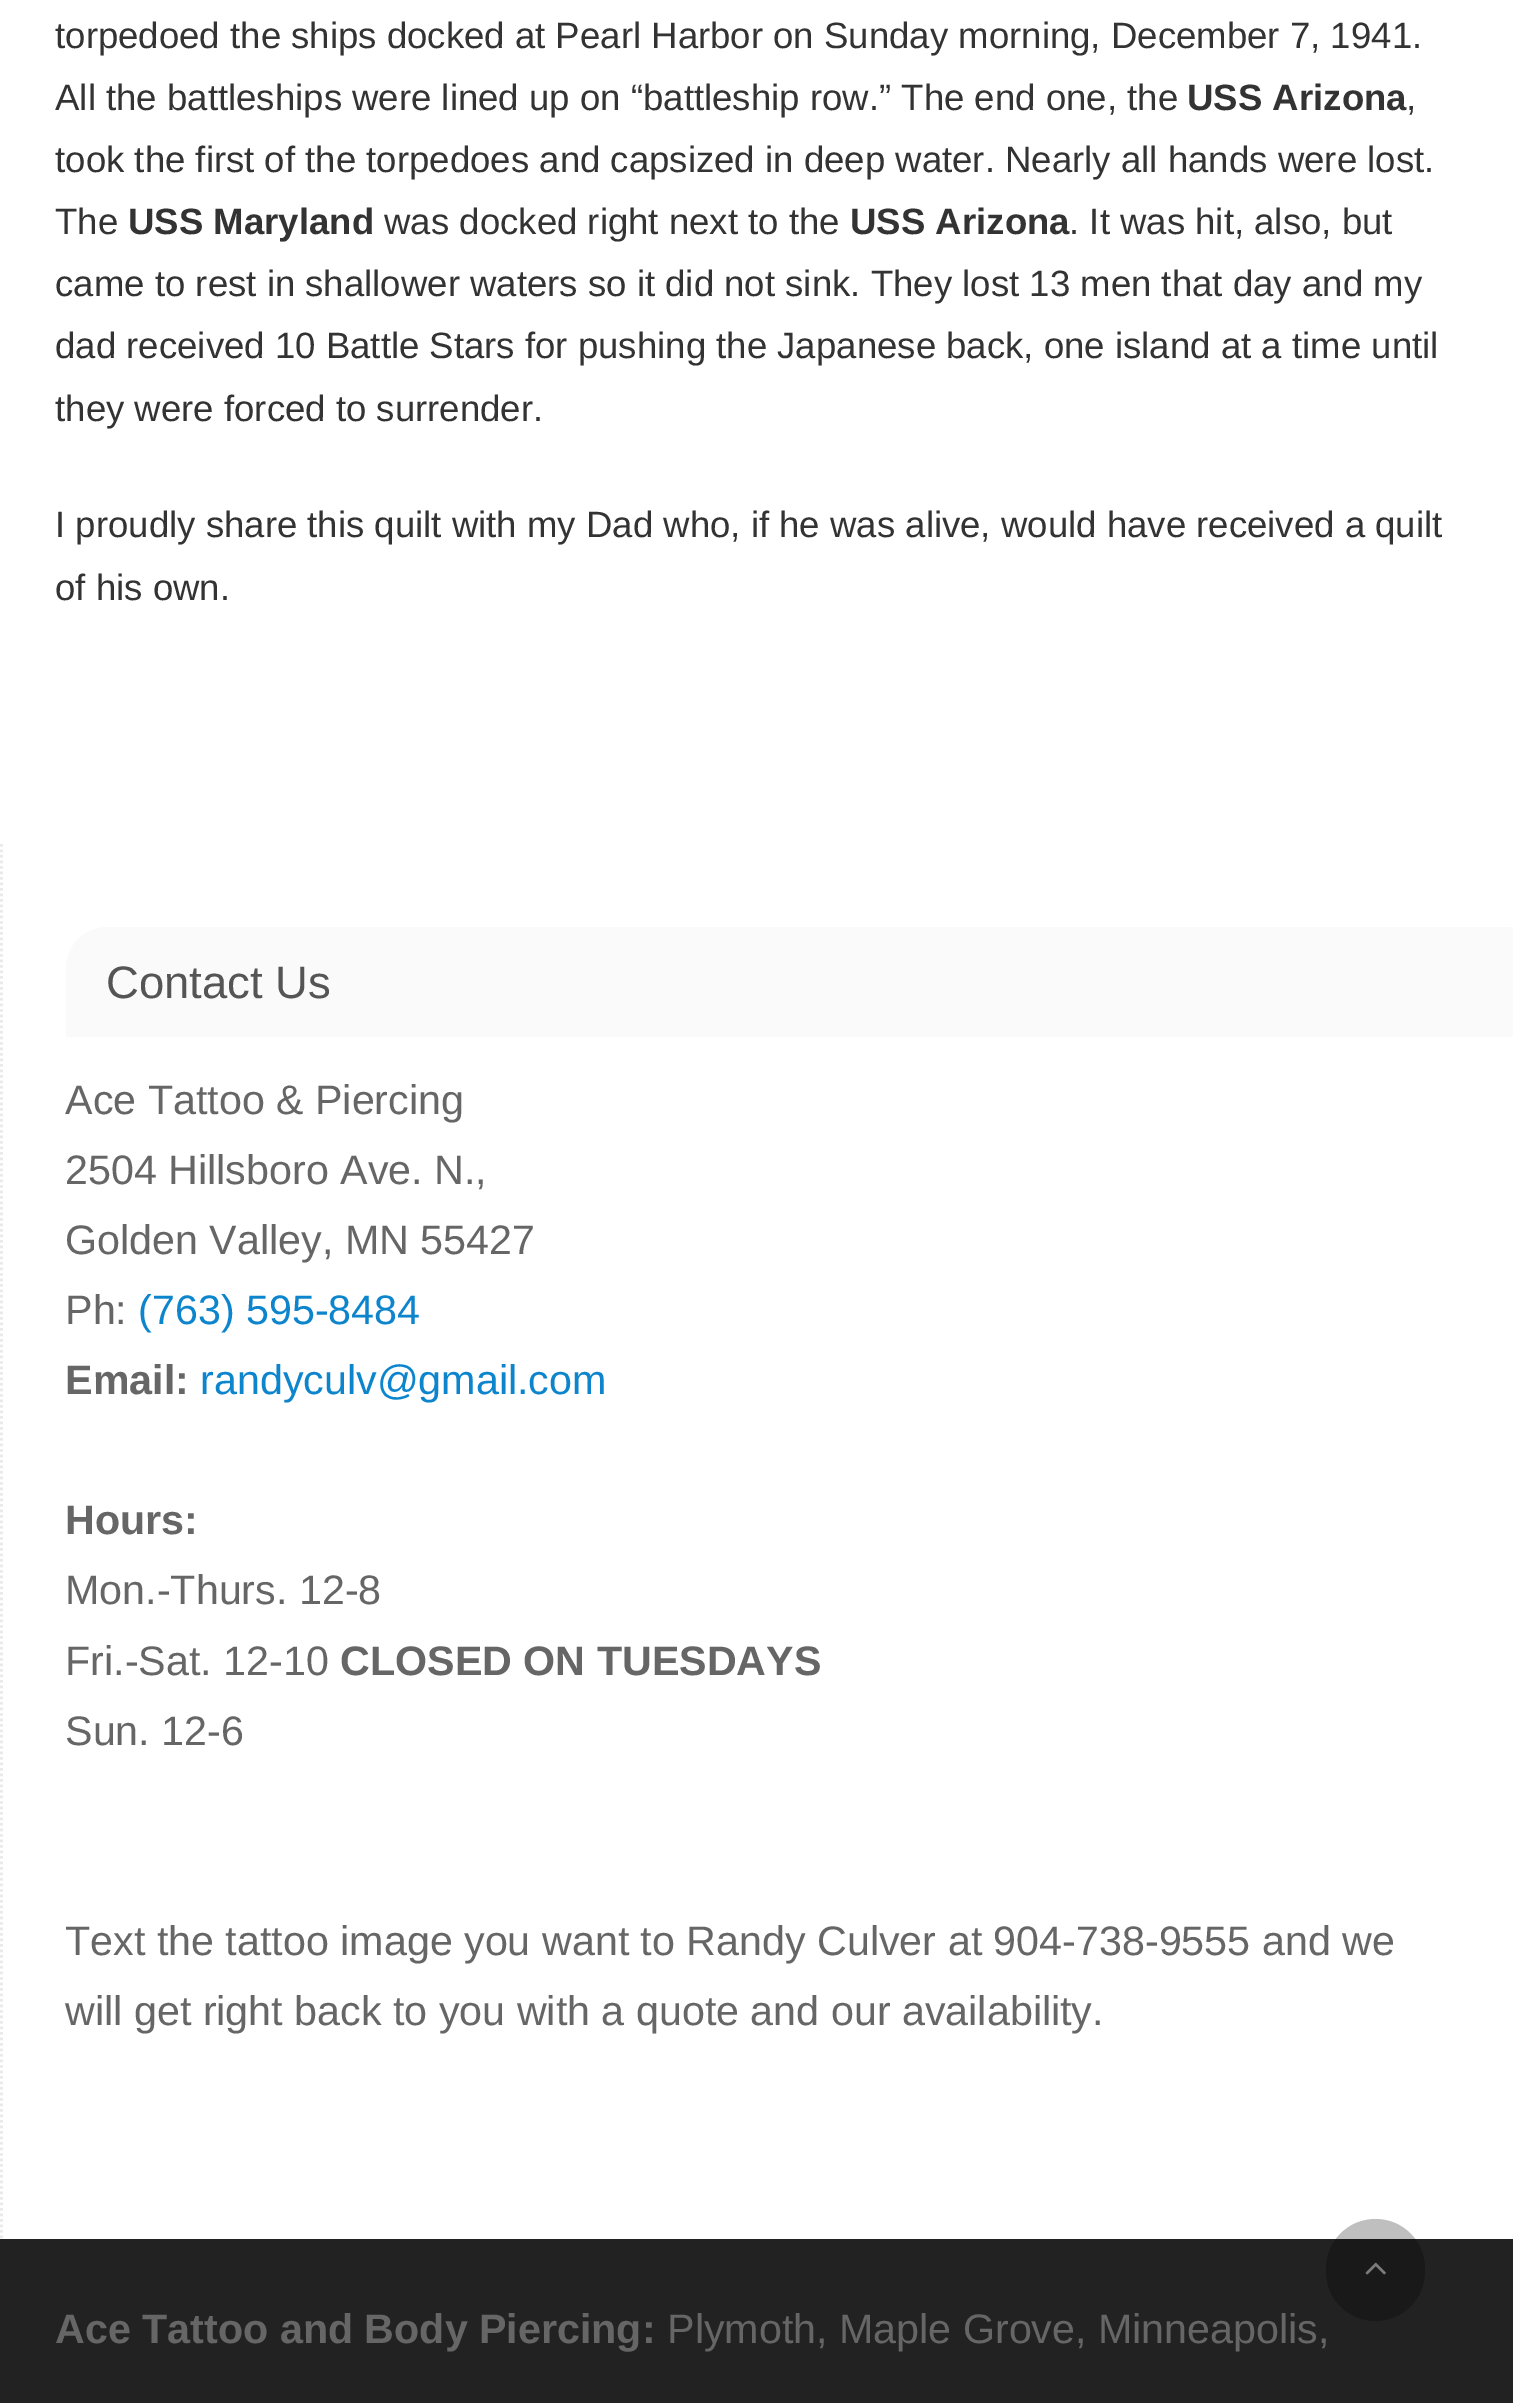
%!PS-Adobe-3.0
%%BoundingBox: 0 0 1513 2403
%%LanguageLevel: 3
%%Pages: 1
%%EndComments
%%BeginProlog
/setink { 3 { 255 div 3 1 roll } repeat setrgbcolor } def
/usefont { [ exch dup neg 0 0 3 -1 roll 0 0 ] selectfont } def
/drawtext { setink usefont moveto show } def
/fillbox { setink rectfill } def
/setalpha { dup .setfillconstantalpha .setstrokeconstantalpha } def
/rrect { 5 dict begin { /r /h /w /y /x } { exch def } forall
  x r add y moveto x w add y 2 copy h add r arct x w add y h add x 1 index r arct
  x y h add x y r arct x y 2 copy exch w add exch r arct closepath end } def
/drawimage { 5 dict begin { /h /w /y /x /name } { exch def } forall
  gsave x y translate w h scale
  w h 8 [w 0 0 h 0 0] name (r) file false 3 colorimage grestore end } def
%%EndProlog
%%BeginSetup
<< /PageSize [1513 2403] /PageUsesTransparency true >> setpagedevice
%%EndSetup
%%Page: 1 1
0 .pushpdf14devicefilter
0 2403 translate 1 -1 scale
4 setmiterlimit
0 0 1513 2403 34 34 34 fillbox
0 0 1513 2239 255 255 255 fillbox
(torpedoed the ships docked at Pearl Harbor on Sunday morning, December 7, 1941.) 55 48 /LiberationSans-Regular 36.6 51 51 51 drawtext
(All the battleships were lined up on “battleship row.” The end one, the) 55 110 /LiberationSans-Regular 36.6 51 51 51 drawtext
(USS Arizona) 1187 110 /LiberationSans-Bold 36.6 51 51 51 drawtext
(,) 1406 110 /LiberationSans-Regular 36.6 51 51 51 drawtext
(took the first of the torpedoes and capsized in deep water. Nearly all hands were lost.) 55 172 /LiberationSans-Regular 36.6 51 51 51 drawtext
(The) 55 234 /LiberationSans-Regular 36.6 51 51 51 drawtext
(USS Maryland) 128 234 /LiberationSans-Bold 36.6 51 51 51 drawtext
(was docked right next to the) 384 234 /LiberationSans-Regular 36.6 51 51 51 drawtext
(USS Arizona) 850 234 /LiberationSans-Bold 36.6 51 51 51 drawtext
(. It was hit, also, but) 1069 234 /LiberationSans-Regular 36.6 51 51 51 drawtext
(came to rest in shallower waters so it did not sink. They lost 13 men that day and my) 55 296 /LiberationSans-Regular 36.6 51 51 51 drawtext
(dad received 10 Battle Stars for pushing the Japanese back, one island at a time until) 55 358 /LiberationSans-Regular 36.6 51 51 51 drawtext
(they were forced to surrender.) 55 421 /LiberationSans-Regular 36.6 51 51 51 drawtext
(I proudly share this quilt with my Dad who, if he was alive, would have received a quilt) 55 537 /LiberationSans-Regular 36.6 51 51 51 drawtext
(of his own.) 55 600 /LiberationSans-Regular 36.6 51 51 51 drawtext
234 234 234 setink
2.8 setlinewidth
[2.75 2.75] 0 setdash
1.5 844 moveto 1.5 2238.5 lineto stroke
250 250 250 setink
107 927 moveto 1505 927 lineto 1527.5 927 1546 945.5 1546 968 curveto 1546 1037 lineto 66 1037 lineto 66 968 lineto 66 945.5 84.5 927 107 927 curveto closepath fill
(Contact Us) 106 998 /LiberationSans-Regular 45.5 85 85 85 drawtext
(Ace Tattoo & Piercing) 65 1114 /LiberationSans-Regular 41.25 102 102 102 drawtext
(2504 Hillsboro Ave. N.,) 65 1184 /LiberationSans-Regular 41.25 102 102 102 drawtext
(Golden Valley, MN 55427) 65 1254 /LiberationSans-Regular 41.25 102 102 102 drawtext
(Ph:) 65 1324 /LiberationSans-Regular 41.25 102 102 102 drawtext
(\(763\) 595-8484) 138 1324 /LiberationSans-Regular 41.25 13 133 204 drawtext
(Email:) 65 1394 /LiberationSans-Bold 41.25 102 102 102 drawtext
(randyculv@gmail.com) 200 1394 /LiberationSans-Regular 41.25 13 133 204 drawtext
(Hours:) 65 1534 /LiberationSans-Bold 41.25 102 102 102 drawtext
(Mon.-Thurs. 12-8) 65 1604 /LiberationSans-Regular 41.25 102 102 102 drawtext
(Fri.-Sat. 12-10) 65 1675 /LiberationSans-Regular 41.25 102 102 102 drawtext
(CLOSED ON TUESDAYS) 340 1675 /LiberationSans-Bold 41.25 102 102 102 drawtext
(Sun. 12-6) 65 1745 /LiberationSans-Regular 41.25 102 102 102 drawtext
(Text the tattoo image you want to Randy Culver at 904-738-9555 and we) 65 1955 /LiberationSans-Regular 41.25 102 102 102 drawtext
(will get right back to you with a quote and our availability.) 65 2025 /LiberationSans-Regular 41.25 102 102 102 drawtext
(Ace Tattoo and Body Piercing:) 55 2343 /LiberationSans-Bold 41.25 102 102 102 drawtext
(Plymoth, Maple Grove, Minneapolis,) 667 2343 /LiberationSans-Regular 41.25 102 102 102 drawtext
0.25 setalpha
0 0 0 setink
1326 2219 99 102 49.5 rrect fill
1 setalpha
(assets/img1.rgb) 1365 2262 21 13 drawimage
.poppdf14devicefilter showpage
%%EOF
